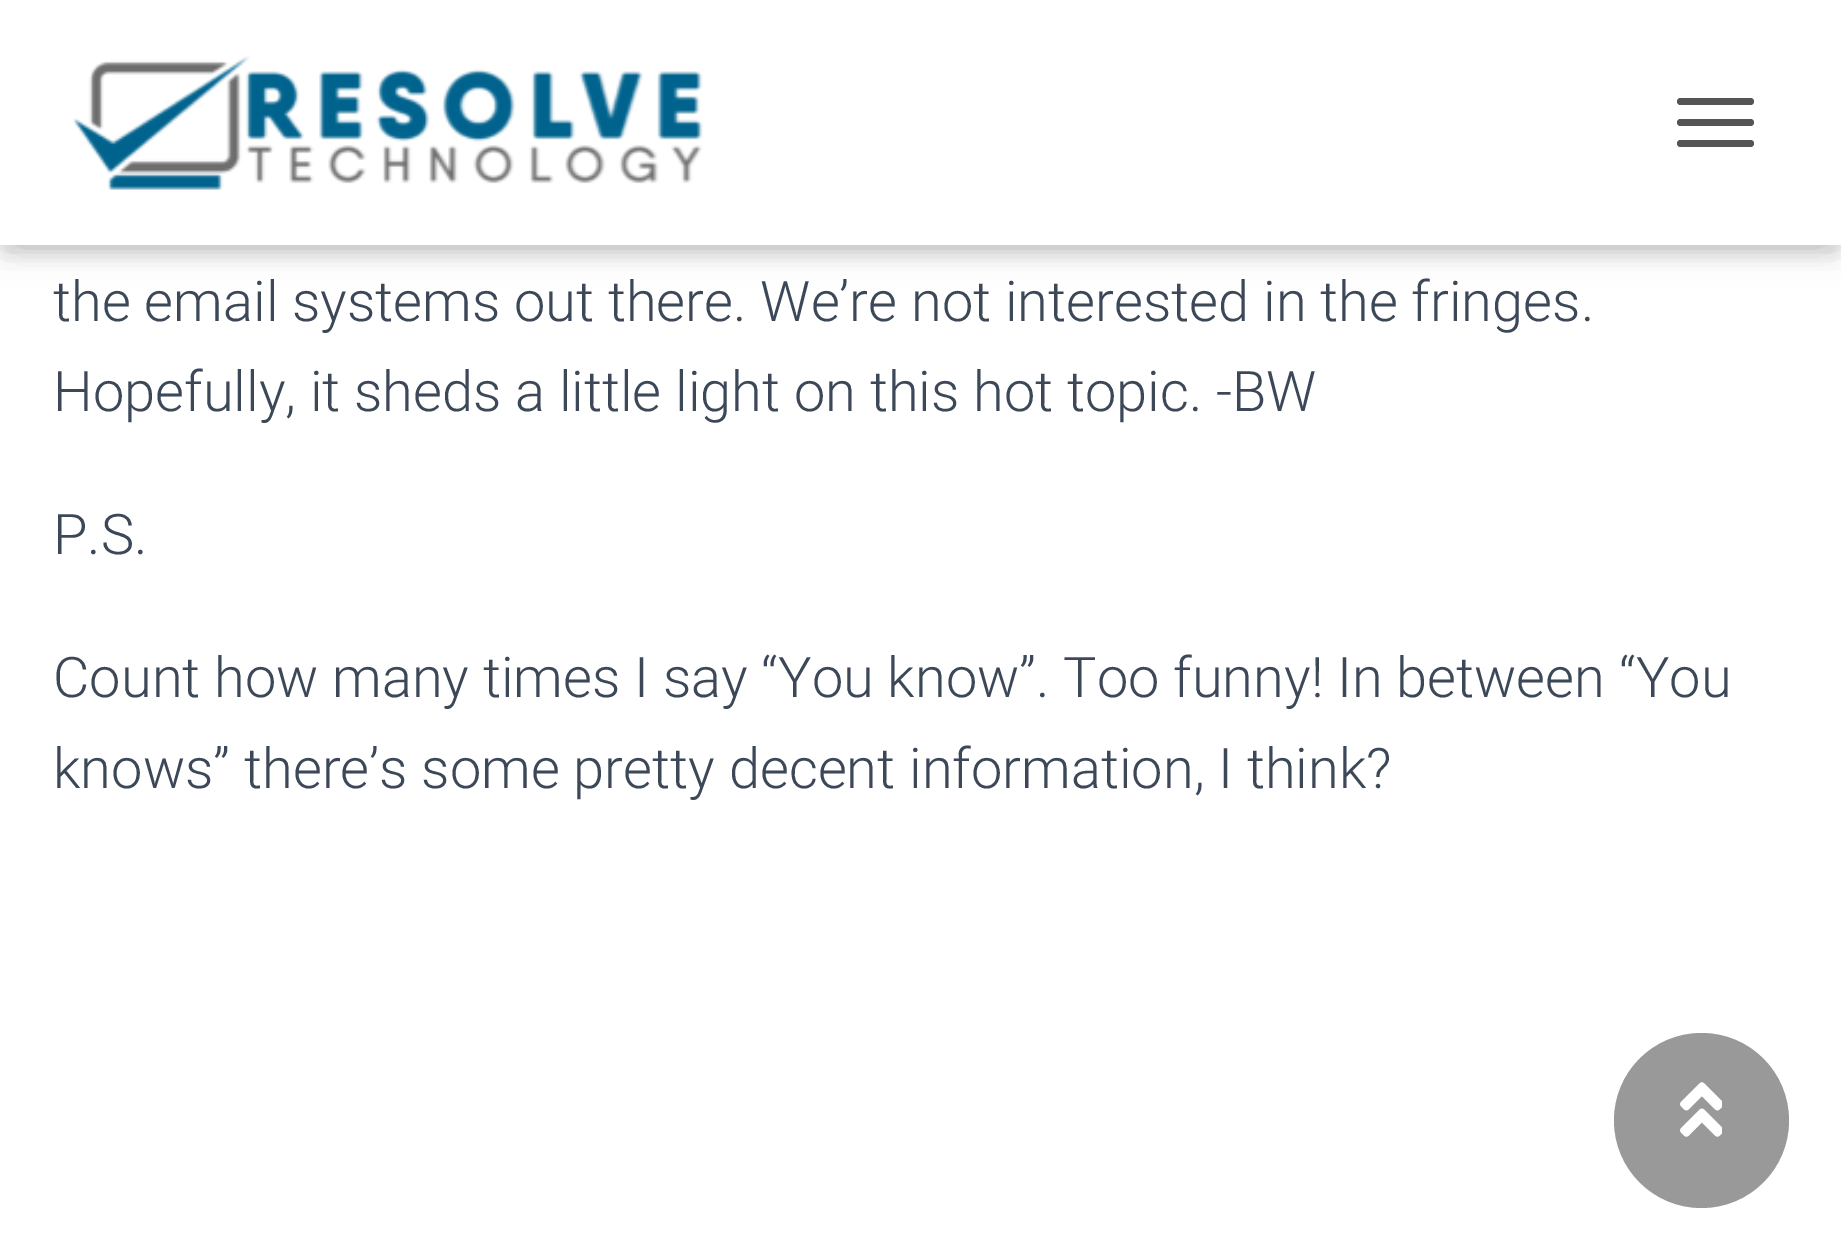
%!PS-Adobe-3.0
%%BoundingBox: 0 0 1841 1257
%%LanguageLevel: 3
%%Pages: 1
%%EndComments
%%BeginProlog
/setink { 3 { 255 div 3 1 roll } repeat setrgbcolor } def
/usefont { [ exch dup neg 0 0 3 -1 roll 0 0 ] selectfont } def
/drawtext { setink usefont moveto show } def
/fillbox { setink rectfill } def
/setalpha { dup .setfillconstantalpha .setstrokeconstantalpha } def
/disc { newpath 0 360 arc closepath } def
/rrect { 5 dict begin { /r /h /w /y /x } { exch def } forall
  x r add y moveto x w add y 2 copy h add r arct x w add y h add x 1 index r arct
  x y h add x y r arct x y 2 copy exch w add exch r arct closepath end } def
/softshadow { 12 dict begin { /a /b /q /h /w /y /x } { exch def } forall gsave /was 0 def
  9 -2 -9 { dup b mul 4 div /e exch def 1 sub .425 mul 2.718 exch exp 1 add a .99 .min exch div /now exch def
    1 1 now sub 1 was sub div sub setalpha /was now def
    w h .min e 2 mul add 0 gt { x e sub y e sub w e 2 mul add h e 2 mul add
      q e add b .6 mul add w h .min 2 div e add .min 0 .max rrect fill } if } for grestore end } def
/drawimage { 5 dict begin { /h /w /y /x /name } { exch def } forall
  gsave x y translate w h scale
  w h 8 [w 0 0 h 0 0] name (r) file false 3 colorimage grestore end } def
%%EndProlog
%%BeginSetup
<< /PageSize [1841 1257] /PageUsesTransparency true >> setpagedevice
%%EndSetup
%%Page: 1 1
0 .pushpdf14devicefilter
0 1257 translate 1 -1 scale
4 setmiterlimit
0 0 1841 1257 255 255 255 fillbox
0 0 0 setink
7 21 1827 231 0 9 0.1 softshadow
0 4 1841 245 0 17.5 0.12 softshadow
21 25 1799 203 0 17.5 0.42 softshadow
0 0 1841 245 255 255 255 fillbox
(assets/img1.rgb) 73 56 630 134 drawimage
85 85 85 setink
1677 98 77 7 3.5 rrect fill
1677 119 77 7 3.5 rrect fill
1677 140 77 7 3.5 rrect fill
(the email systems out there. We’re not interested in the fringes.) 53 321 /Roboto-Light 56 60 72 88 drawtext
(Hopefully, it sheds a little light on this hot topic. -BW) 53 411 /Roboto-Light 56 60 72 88 drawtext
(P.S.) 53 554 /Roboto-Light 56 60 72 88 drawtext
(Count how many times I say “You know”. Too funny! In between “You) 53 697 /Roboto-Light 56 60 72 88 drawtext
(knows” there’s some pretty decent information, I think?) 53 788 /Roboto-Light 56 60 72 88 drawtext
153 153 153 setink
1701.5 1120.5 87.5 disc fill
(assets/img2.rgb) 1680 1082 42 55 drawimage
.poppdf14devicefilter showpage
%%EOF
